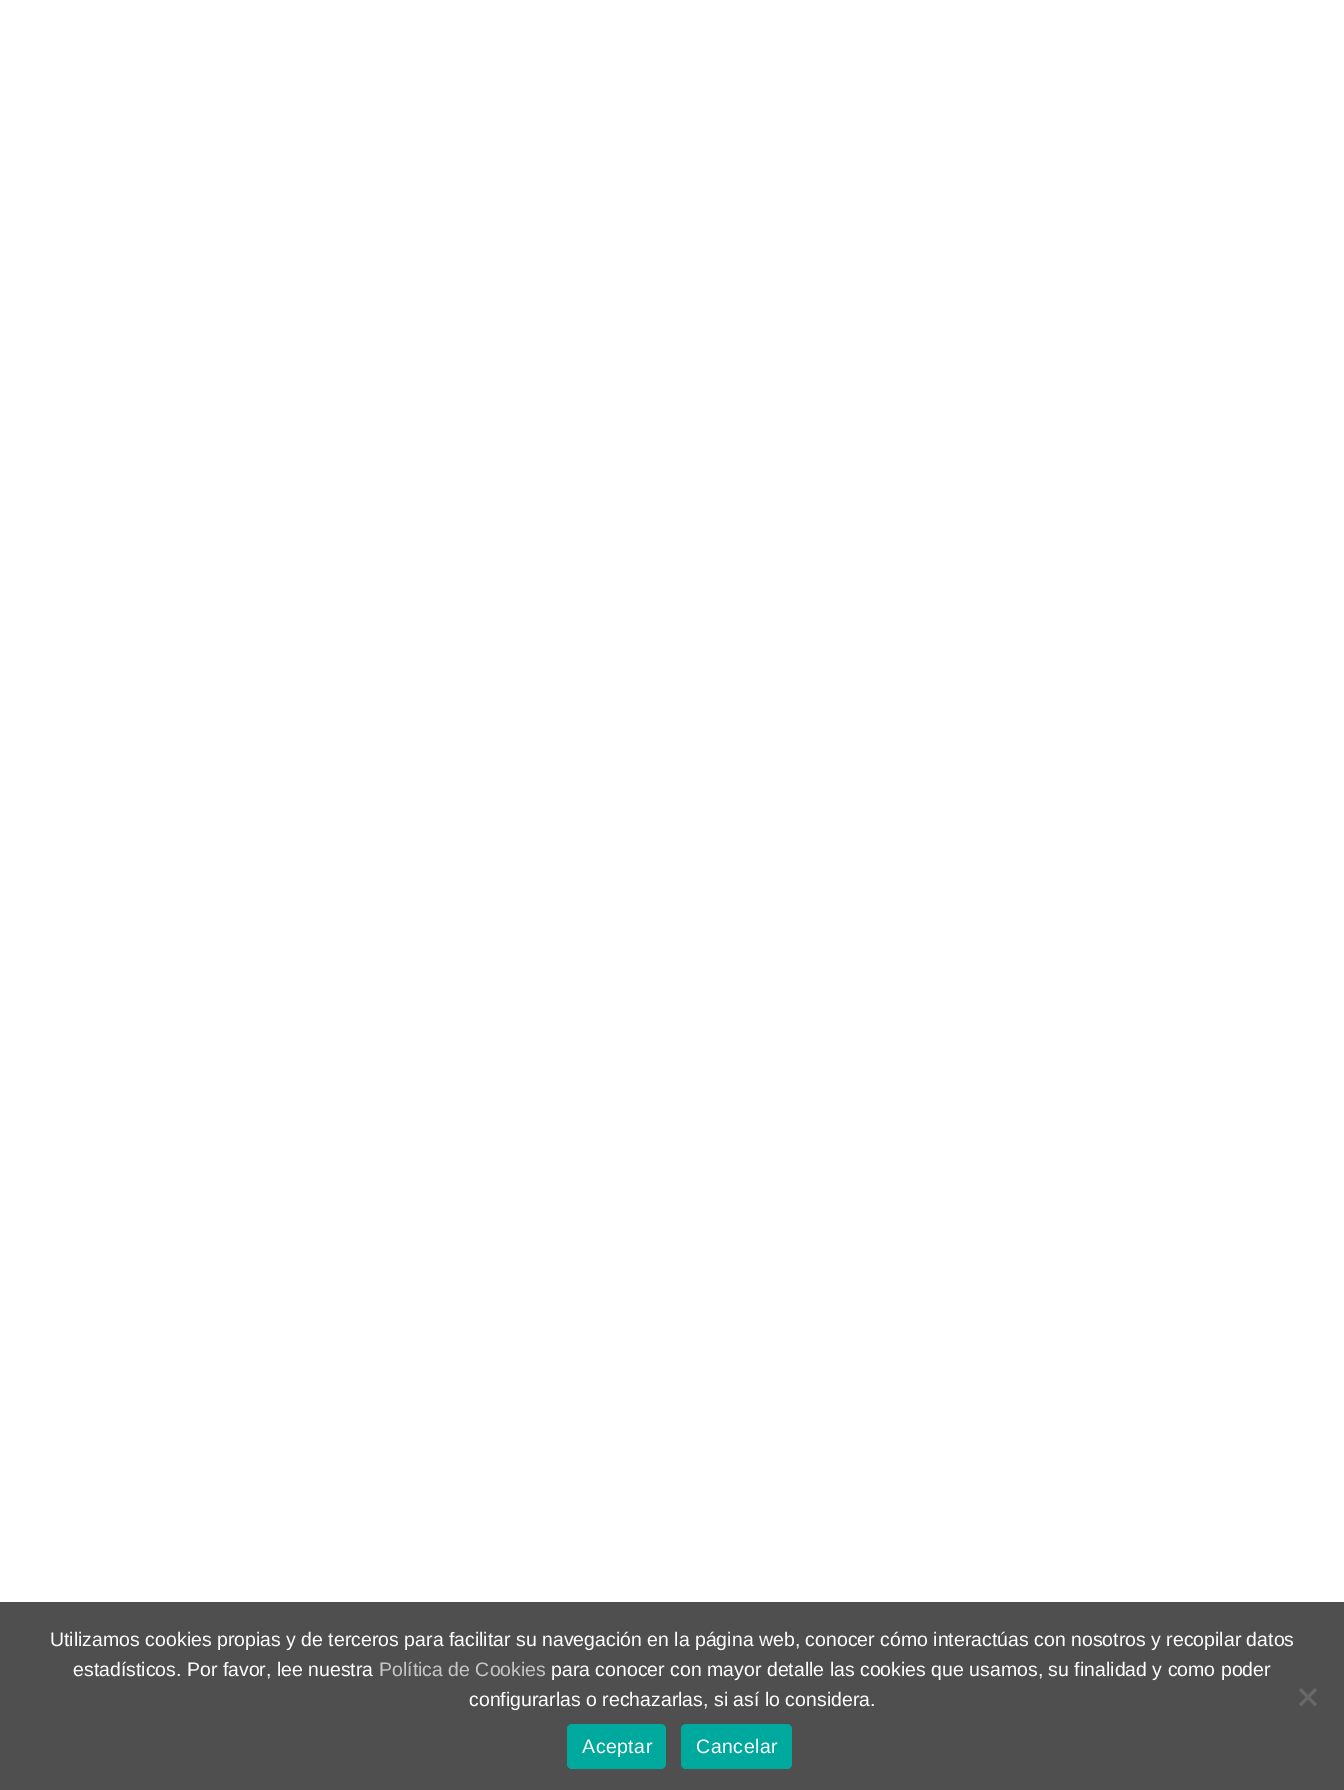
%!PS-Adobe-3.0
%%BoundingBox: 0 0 1344 1790
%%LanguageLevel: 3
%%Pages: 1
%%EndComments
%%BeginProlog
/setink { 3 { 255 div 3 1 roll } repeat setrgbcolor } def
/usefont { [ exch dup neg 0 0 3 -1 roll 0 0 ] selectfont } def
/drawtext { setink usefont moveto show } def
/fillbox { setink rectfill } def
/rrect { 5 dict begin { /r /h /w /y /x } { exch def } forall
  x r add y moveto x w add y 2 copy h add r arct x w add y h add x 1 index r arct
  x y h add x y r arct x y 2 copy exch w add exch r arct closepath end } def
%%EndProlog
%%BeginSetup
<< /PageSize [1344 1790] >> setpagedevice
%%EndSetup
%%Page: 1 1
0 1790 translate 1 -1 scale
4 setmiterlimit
0 0 1344 1790 255 255 255 fillbox
0 1602 1344 188 79 79 79 fillbox
(Utilizamos cookies propias y de terceros para facilitar su navegación en la página web, conocer cómo interactúas con nosotros y recopilar datos) 50 1646 /LiberationSans-Regular 19.5 255 255 255 drawtext
(estadísticos. Por favor, lee nuestra) 73 1676 /LiberationSans-Regular 19.5 255 255 255 drawtext
(Política de Cookies) 379 1676 /LiberationSans-Regular 19.5 197 197 197 drawtext
(para conocer con mayor detalle las cookies que usamos, su finalidad y como poder) 551 1676 /LiberationSans-Regular 19.5 255 255 255 drawtext
(configurarlas o rechazarlas, si así lo considera.) 469 1706 /LiberationSans-Regular 19.5 255 255 255 drawtext
104 104 104 setink
1315 1688 moveto 1317 1690.5 lineto 1301 1706.5 lineto 1299 1704 lineto closepath fill
1299 1690.5 moveto 1301 1688 lineto 1317 1704 lineto 1315 1706.5 lineto closepath fill
0 169 157 setink
567 1724 99 45 5 rrect fill
255 255 255 setink
582 1753 moveto 0.5 0 (Aceptar) ashow
0 169 157 setink
681 1724 111 45 5 rrect fill
255 255 255 setink
696 1753 moveto 0.5 0 (Cancelar) ashow
showpage
%%EOF
